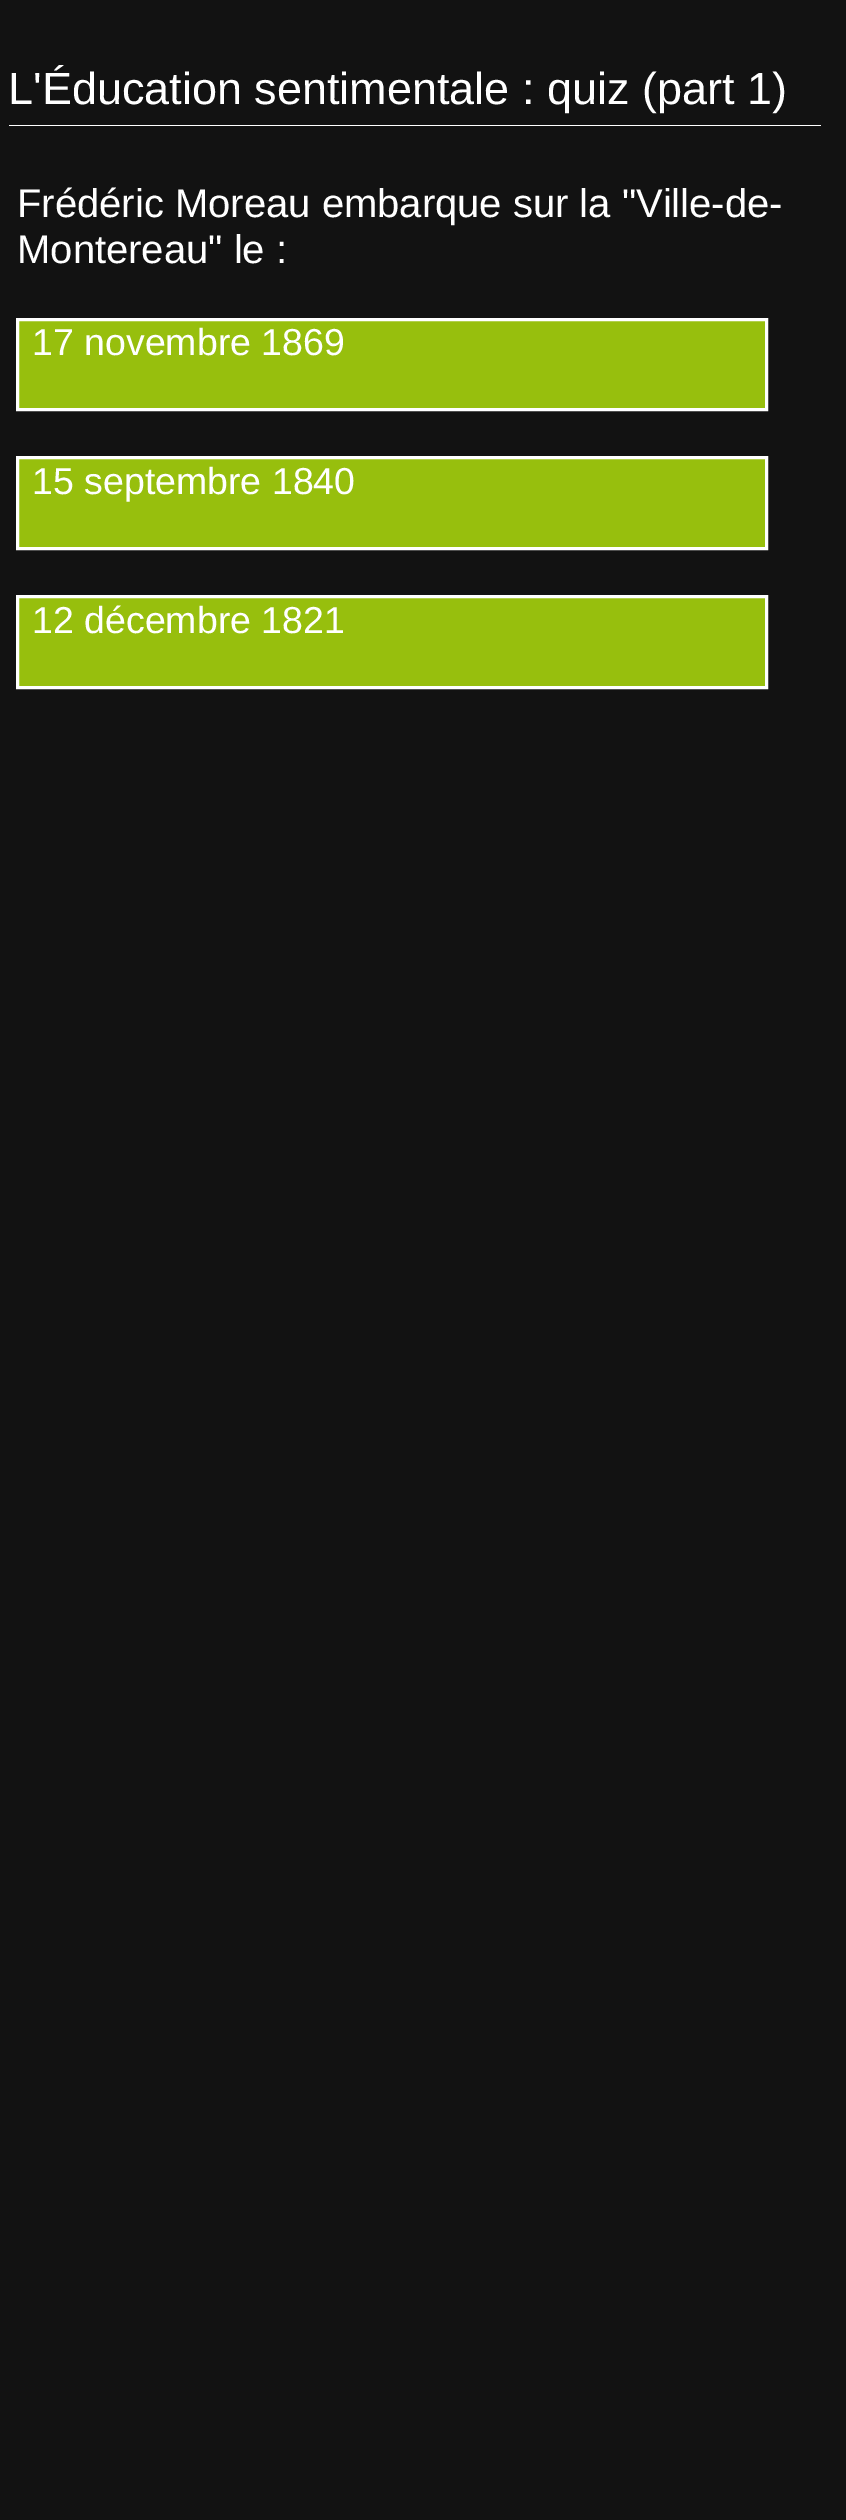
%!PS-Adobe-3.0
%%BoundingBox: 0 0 846 2520
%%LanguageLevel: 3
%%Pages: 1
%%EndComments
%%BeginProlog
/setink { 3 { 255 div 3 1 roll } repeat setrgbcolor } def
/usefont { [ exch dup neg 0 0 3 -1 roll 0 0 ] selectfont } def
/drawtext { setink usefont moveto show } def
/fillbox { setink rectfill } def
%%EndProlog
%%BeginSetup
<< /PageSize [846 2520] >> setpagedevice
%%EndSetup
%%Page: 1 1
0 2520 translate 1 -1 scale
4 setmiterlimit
0 0 846 2520 18 18 18 fillbox
9 125 812 1 255 255 255 fillbox
(L'Éducation sentimentale : quiz \(part 1\)) 8 104 /LiberationSans-Regular 45 255 255 255 drawtext
(Frédéric Moreau embarque sur la "Ville-de-) 17 217 /LiberationSans-Regular 40 255 255 255 drawtext
(Montereau" le :) 17 263 /LiberationSans-Regular 40 255 255 255 drawtext
151 191 13 setink
17.5 319.5 moveto 766.5 319.5 lineto 766.5 409.5 lineto 17.5 409.5 lineto closepath gsave fill grestore
255 255 255 setink
3 setlinewidth
stroke
(17 novembre 1869) 32 355 /LiberationSans-Regular 37.5 255 255 255 drawtext
151 191 13 setink
17.5 457.5 moveto 766.5 457.5 lineto 766.5 548.5 lineto 17.5 548.5 lineto closepath gsave fill grestore
255 255 255 setink
stroke
(15 septembre 1840) 32 494 /LiberationSans-Regular 37.5 255 255 255 drawtext
151 191 13 setink
17.5 596.5 moveto 766.5 596.5 lineto 766.5 687.5 lineto 17.5 687.5 lineto closepath gsave fill grestore
255 255 255 setink
stroke
(12 décembre 1821) 32 633 /LiberationSans-Regular 37.5 255 255 255 drawtext
showpage
%%EOF
